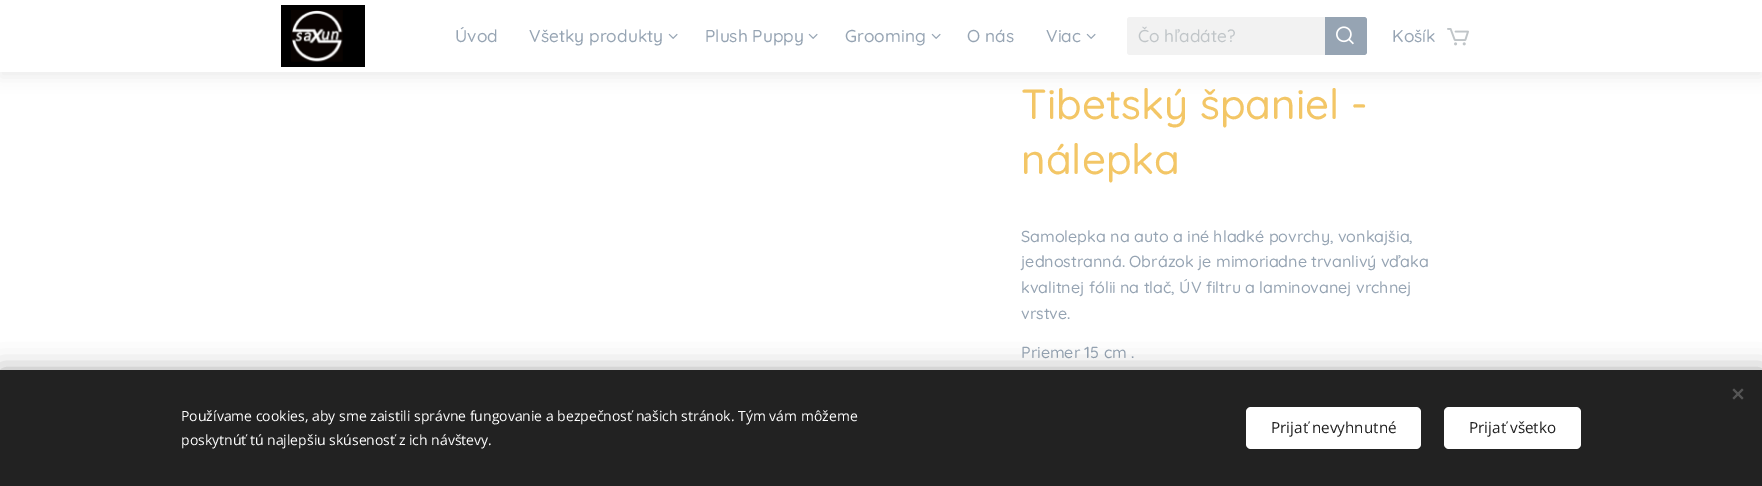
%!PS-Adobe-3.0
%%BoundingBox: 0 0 1762 486
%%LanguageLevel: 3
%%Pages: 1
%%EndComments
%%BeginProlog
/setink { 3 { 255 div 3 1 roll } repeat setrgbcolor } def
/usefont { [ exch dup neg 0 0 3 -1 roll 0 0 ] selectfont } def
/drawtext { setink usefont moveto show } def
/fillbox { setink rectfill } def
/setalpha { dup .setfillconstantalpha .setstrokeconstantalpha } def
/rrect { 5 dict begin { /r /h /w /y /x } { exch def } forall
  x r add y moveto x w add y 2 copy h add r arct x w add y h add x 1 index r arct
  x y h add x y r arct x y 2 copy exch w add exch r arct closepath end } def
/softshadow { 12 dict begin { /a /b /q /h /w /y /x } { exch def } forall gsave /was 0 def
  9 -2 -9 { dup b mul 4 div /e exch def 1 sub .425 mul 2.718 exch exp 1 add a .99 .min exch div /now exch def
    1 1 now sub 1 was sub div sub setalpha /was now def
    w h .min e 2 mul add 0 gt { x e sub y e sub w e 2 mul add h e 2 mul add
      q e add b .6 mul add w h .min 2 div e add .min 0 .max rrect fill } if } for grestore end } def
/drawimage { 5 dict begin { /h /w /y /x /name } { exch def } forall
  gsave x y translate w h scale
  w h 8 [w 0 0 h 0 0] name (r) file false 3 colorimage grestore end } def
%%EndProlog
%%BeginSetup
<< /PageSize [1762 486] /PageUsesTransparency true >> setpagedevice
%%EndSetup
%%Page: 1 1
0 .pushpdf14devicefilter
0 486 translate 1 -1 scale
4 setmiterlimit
0 0 1762 486 255 255 255 fillbox
0 0 0 setink
0 5 1762 72 0 7.5 0.07 softshadow
0 0 1762 72 255 255 255 fillbox
281 5 84 62 0 0 0 fillbox
(assets/img1.rgb) 291 10 52 52 drawimage
(Úvod) 455 42 /Quicksand-Medium 17.25 150 164 179 drawtext
(Všetky produkty) 529 42 /Quicksand-Medium 17.25 150 164 179 drawtext
(assets/img2.rgb) 668 33 10 6 drawimage
(Plush Puppy) 705 42 /Quicksand-Medium 17.25 150 164 179 drawtext
(assets/img2.rgb) 808 33 10 6 drawimage
(Grooming) 845 42 /Quicksand-Medium 17.25 150 164 179 drawtext
(assets/img2.rgb) 931 33 10 6 drawimage
(O nás) 967 42 /Quicksand-Medium 17.25 150 164 179 drawtext
(Viac) 1046 42 /Quicksand-Medium 17.25 150 164 179 drawtext
(assets/img2.rgb) 1086 33 10 6 drawimage
242 242 242 setink
1130 17 moveto 1325 17 lineto 1325 55 lineto 1130 55 lineto 1128.5 55 1127 53.5 1127 52 curveto 1127 20 lineto 1127 18.5 1128.5 17 1130 17 curveto closepath fill
(Čo hľadáte?) 1138 42 /Quicksand-Medium 17.25 192 197 200 drawtext
150 164 179 setink
1325 17 moveto 1364 17 lineto 1365.5 17 1367 18.5 1367 20 curveto 1367 52 lineto 1367 53.5 1365.5 55 1364 55 curveto 1325 55 lineto closepath fill
(assets/img3.rgb) 1336 26 18 19 drawimage
(Košík) 1392 42 /Quicksand-Medium 17.25 150 164 179 drawtext
(assets/img4.rgb) 1447 28 22 18 drawimage
(Tibetský španiel -) 1021 119 /Quicksand-Medium 42 243 198 102 drawtext
(nálepka) 1021 174 /Quicksand-Medium 42 243 198 102 drawtext
(Samolepka na auto a iné hladké povrchy, vonkajšia,) 1021 242 /Quicksand-Medium 16 150 164 179 drawtext
(jednostranná. Obrázok je mimoriadne trvanlivý vďaka) 1021 267 /Quicksand-Medium 16 150 164 179 drawtext
(kvalitnej fólii na tlač, ÚV filtru a laminovanej vrchnej) 1021 293 /Quicksand-Medium 16 150 164 179 drawtext
(vrstve.) 1021 319 /Quicksand-Medium 16 150 164 179 drawtext
(Priemer 15 cm .) 1021 358 /Quicksand-Medium 16 150 164 179 drawtext
0 0 0 setink
0 370 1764 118 0 12.5 0.33 softshadow
0 370 1762 116 34 34 34 fillbox
85 85 85 setink
1732.5 398 moveto 1742 388.5 lineto 1743.5 390 lineto 1734 399.5 lineto closepath fill
1734 388.5 moveto 1743.5 398 lineto 1742 399.5 lineto 1732.5 390 lineto closepath fill
(Používame cookies, aby sme zaistili správne fungovanie a bezpečnosť našich stránok. Tým vám môžeme) 181 421 /OpenSans-Regular 14 255 255 255 drawtext
(poskytnúť tú najlepšiu skúsenosť z ich návštevy.) 181 445 /OpenSans-Regular 14 255 255 255 drawtext
1246 407 175 42 5 rrect fill
(Prijať nevyhnutné) 1271 433 /OpenSans-Regular 15.25 34 34 34 drawtext
255 255 255 setink
1444 407 137 42 5 rrect fill
(Prijať všetko) 1469 433 /OpenSans-Regular 15.25 34 34 34 drawtext
.poppdf14devicefilter showpage
%%EOF
